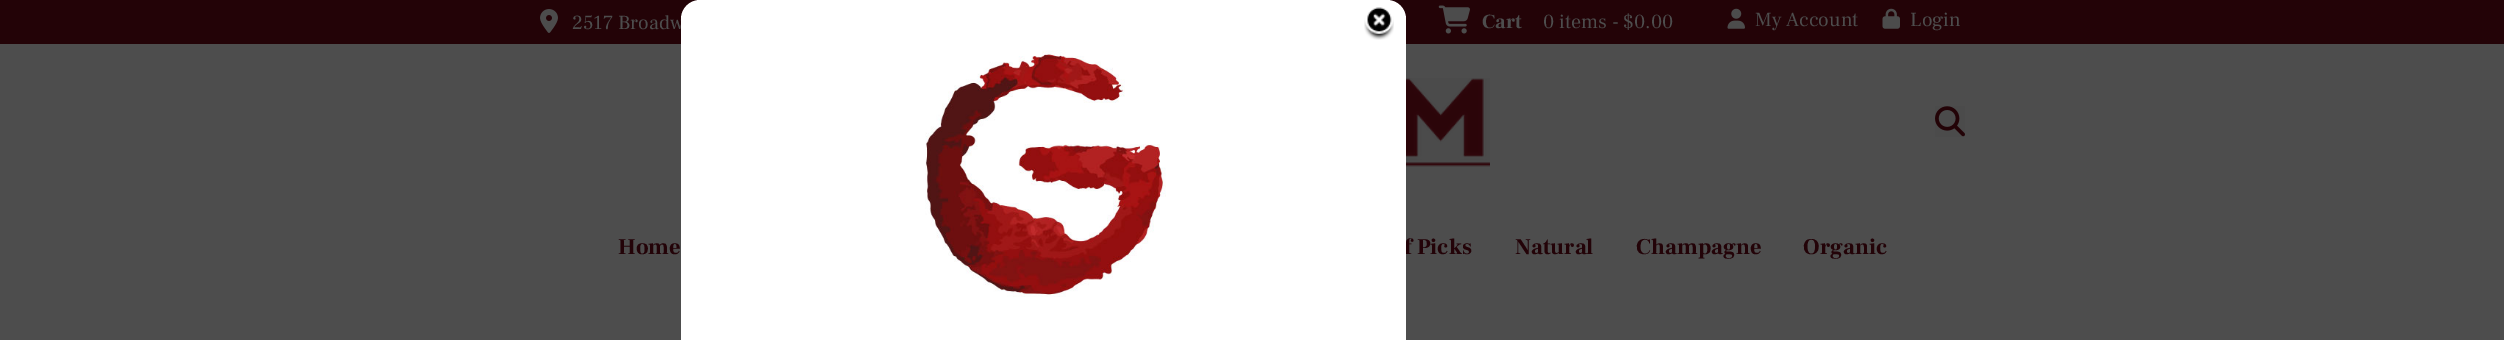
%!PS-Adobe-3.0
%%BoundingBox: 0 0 2504 340
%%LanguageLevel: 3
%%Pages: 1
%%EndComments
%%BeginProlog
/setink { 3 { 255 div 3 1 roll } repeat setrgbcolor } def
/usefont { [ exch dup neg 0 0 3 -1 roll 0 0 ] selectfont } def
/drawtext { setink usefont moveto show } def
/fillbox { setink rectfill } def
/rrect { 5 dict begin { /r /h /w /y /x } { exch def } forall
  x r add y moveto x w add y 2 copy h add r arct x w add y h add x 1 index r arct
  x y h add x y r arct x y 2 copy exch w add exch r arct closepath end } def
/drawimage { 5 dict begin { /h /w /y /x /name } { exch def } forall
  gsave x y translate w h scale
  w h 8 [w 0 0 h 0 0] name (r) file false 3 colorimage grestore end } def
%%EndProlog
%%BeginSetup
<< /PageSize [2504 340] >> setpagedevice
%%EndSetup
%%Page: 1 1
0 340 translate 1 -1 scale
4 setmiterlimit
0 0 2504 340 77 77 77 fillbox
(f Picks) 1404 254 /FrankRuhlLibre-Bold 22.5 35 3 8 drawtext
0 0 2504 44 35 3 7 fillbox
(2517 Broadw) 572 29 /FrankRuhlLibre-Regular 20 77 77 77 drawtext
255 255 255 setink
681 0 725 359 19 rrect fill
(assets/img1.rgb) 1364 7 30 33 drawimage
(assets/img2.rgb) 925 50 241 247 drawimage
(assets/img3.rgb) 1438 5 32 29 drawimage
(Cart) 1482 28 /FrankRuhlLibre-Bold 20 77 77 77 drawtext
(0 items - $0.00) 1543 28 /FrankRuhlLibre-Regular 20 77 77 77 drawtext
(assets/img4.rgb) 1727 8 18 21 drawimage
(My Account) 1755 26 /FrankRuhlLibre-Regular 20 77 77 77 drawtext
(assets/img5.rgb) 1882 8 18 21 drawimage
(Login) 1910 26 /FrankRuhlLibre-Regular 20 77 77 77 drawtext
(assets/img6.rgb) 1406 78 84 89 drawimage
(assets/img7.rgb) 1935 106 30 31 drawimage
(Home) 618 254 /FrankRuhlLibre-Bold 22.5 35 3 8 drawtext
(Natural) 1515 254 /FrankRuhlLibre-Bold 22.5 35 3 8 drawtext
(Champagne) 1636 254 /FrankRuhlLibre-Bold 22.5 35 3 8 drawtext
(Organic) 1803 254 /FrankRuhlLibre-Bold 22.5 35 3 8 drawtext
(assets/img8.rgb) 540 9 18 24 drawimage
showpage
%%EOF
